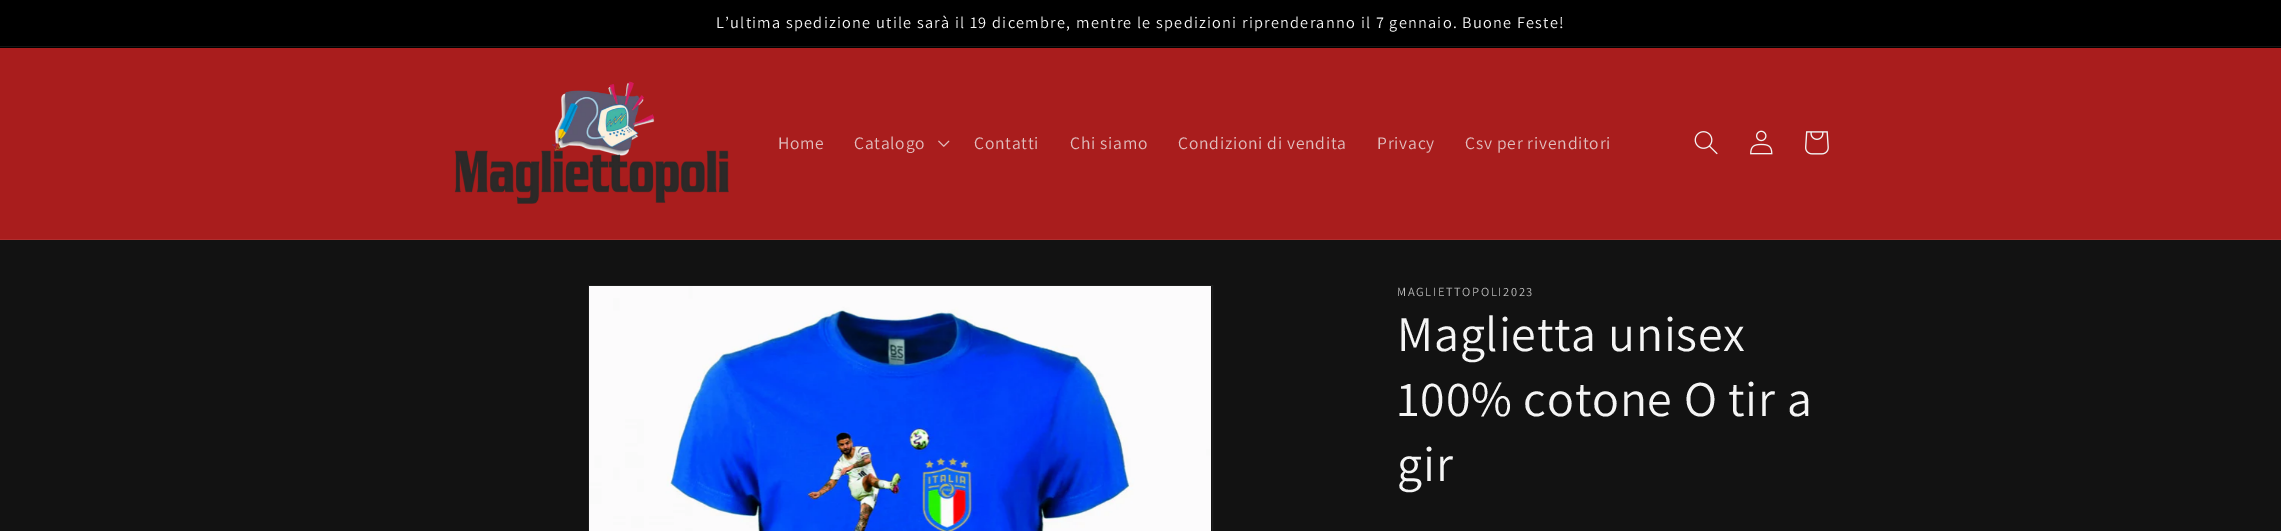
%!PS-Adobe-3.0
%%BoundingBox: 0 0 2281 531
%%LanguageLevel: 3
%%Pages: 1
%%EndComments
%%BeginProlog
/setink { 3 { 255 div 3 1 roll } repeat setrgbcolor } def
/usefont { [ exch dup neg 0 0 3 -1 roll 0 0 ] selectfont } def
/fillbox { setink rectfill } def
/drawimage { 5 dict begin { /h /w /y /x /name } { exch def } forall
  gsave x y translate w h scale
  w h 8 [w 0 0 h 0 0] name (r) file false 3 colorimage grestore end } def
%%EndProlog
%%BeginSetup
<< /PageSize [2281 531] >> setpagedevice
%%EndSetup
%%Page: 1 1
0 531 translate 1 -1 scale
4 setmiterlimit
0 0 2281 531 18 18 18 fillbox
0 0 2281 48 0 0 0 fillbox
0 46 2281 1 19 19 19 fillbox
/Assistant-Regular 16.25 usefont
245 245 245 setink
716 28 moveto 1.25 0 (L’ultima spedizione utile sarà il 19 dicembre, mentre le spedizioni riprenderanno il 7 gennaio. Buone Feste!) ashow
0 48 2281 191 169 29 29 fillbox
0 239 2281 1 175 46 46 fillbox
(assets/img1.rgb) 454 81 275 123 drawimage
/Assistant-Regular 17.5 usefont
225 190 190 setink
778 149 moveto 0.75 0 (Home) ashow
854 149 moveto 0.75 0 (Catalogo) ashow
(assets/img2.rgb) 938 140 12 7 drawimage
974 149 moveto 0.75 0 (Contatti) ashow
1070 149 moveto 0.75 0 (Chi siamo) ashow
1178 149 moveto 0.75 0 (Condizioni di vendita) ashow
1377 149 moveto 0.75 0 (Privacy) ashow
1465 149 moveto 0.75 0 (Csv per rivenditori) ashow
(assets/img3.rgb) 1694 131 24 24 drawimage
(assets/img4.rgb) 1750 130 23 25 drawimage
(assets/img5.rgb) 1805 131 24 24 drawimage
29 29 29 setink
588.5 285.5 624 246 rectstroke
(assets/img6.rgb) 589 286 622 245 drawimage
/Assistant-Regular 12.5 usefont
188 188 188 setink
1397 296 moveto 1.6 0 (MAGLIETTOPOLI2023) ashow
/Assistant-Regular 50 usefont
245 245 245 setink
1397 351 moveto 0.75 0 (Maglietta unisex) ashow
1397 416 moveto 0.75 0 (100% cotone O tir a) ashow
1397 481 moveto 0.75 0 (gir) ashow
showpage
%%EOF
